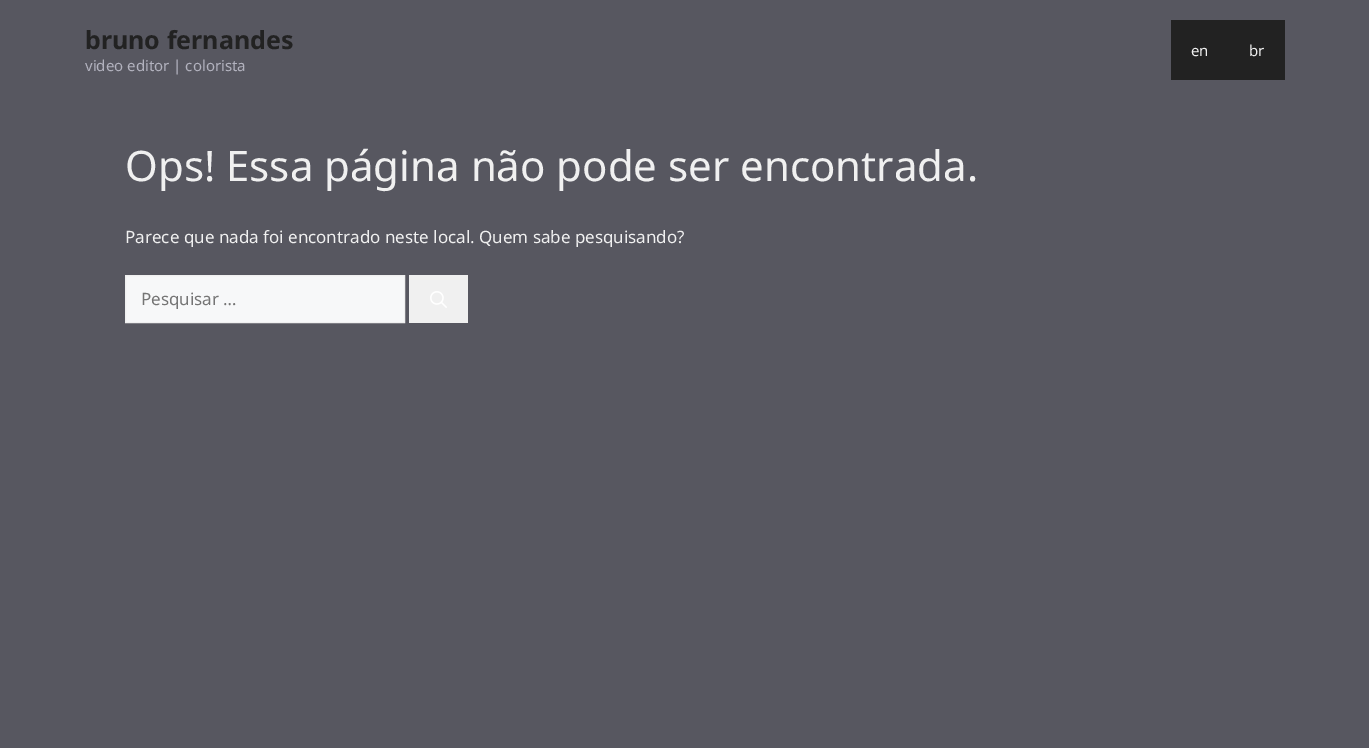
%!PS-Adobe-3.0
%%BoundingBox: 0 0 1369 748
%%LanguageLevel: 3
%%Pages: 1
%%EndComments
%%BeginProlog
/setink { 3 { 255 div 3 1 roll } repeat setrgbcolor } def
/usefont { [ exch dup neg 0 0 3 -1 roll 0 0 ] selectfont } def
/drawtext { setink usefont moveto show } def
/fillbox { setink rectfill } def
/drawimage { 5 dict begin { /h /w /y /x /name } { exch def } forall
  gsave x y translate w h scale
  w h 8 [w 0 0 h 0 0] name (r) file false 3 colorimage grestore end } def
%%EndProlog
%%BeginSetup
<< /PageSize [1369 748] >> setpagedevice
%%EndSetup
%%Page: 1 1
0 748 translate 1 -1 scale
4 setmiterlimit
0 0 1369 748 87 87 96 fillbox
(bruno fernandes) 85 49 /NotoSans-Bold 25 34 34 34 drawtext
(video editor | colorista) 85 71 /NotoSans-Regular 15 178 178 190 drawtext
1171 20 114 60 34 34 34 fillbox
(en) 1191 56 /NotoSans-Regular 15 240 240 240 drawtext
(br) 1249 56 /NotoSans-Regular 15 240 240 240 drawtext
(Ops! Essa página não pode ser encontrada.) 125 181 /NotoSans-Regular 42 240 240 240 drawtext
(Parece que nada foi encontrado neste local. Quem sabe pesquisando?) 125 243 /NotoSans-Regular 17 240 240 240 drawtext
247 248 249 setink
125.5 275.5 moveto 404.5 275.5 lineto 404.5 322.5 lineto 125.5 322.5 lineto closepath gsave fill grestore
240 240 240 setink
stroke
(Pesquisar …) 141 305 /NotoSans-Regular 17 117 117 117 drawtext
409 275 59 48 240 240 240 fillbox
(assets/img1.rgb) 430 291 17 17 drawimage
showpage
%%EOF
